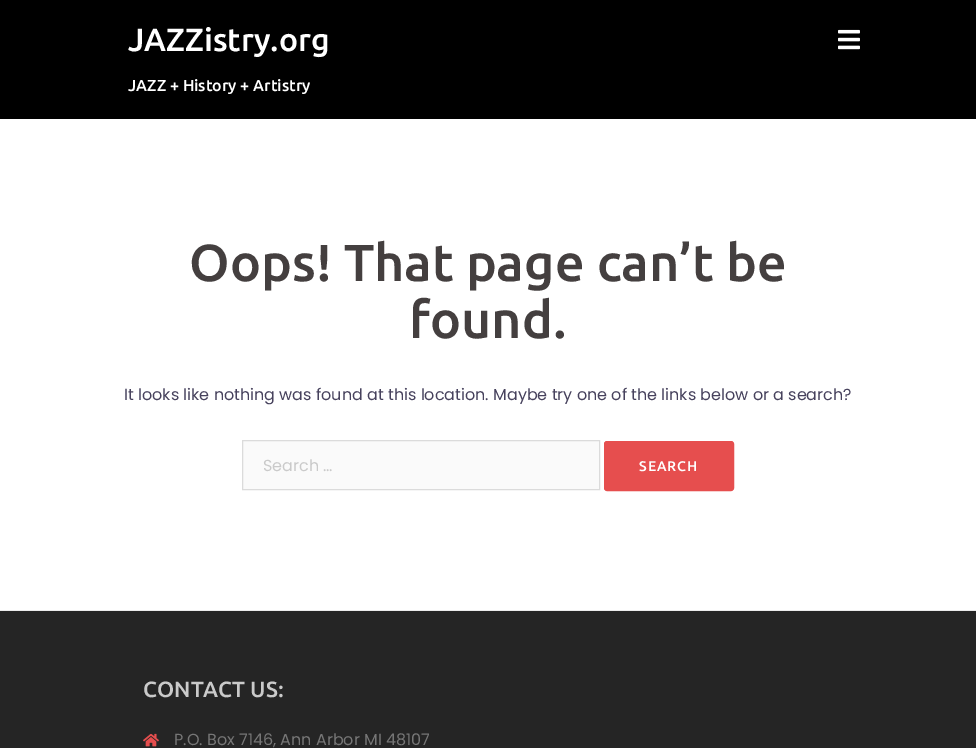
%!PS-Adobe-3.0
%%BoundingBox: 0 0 976 748
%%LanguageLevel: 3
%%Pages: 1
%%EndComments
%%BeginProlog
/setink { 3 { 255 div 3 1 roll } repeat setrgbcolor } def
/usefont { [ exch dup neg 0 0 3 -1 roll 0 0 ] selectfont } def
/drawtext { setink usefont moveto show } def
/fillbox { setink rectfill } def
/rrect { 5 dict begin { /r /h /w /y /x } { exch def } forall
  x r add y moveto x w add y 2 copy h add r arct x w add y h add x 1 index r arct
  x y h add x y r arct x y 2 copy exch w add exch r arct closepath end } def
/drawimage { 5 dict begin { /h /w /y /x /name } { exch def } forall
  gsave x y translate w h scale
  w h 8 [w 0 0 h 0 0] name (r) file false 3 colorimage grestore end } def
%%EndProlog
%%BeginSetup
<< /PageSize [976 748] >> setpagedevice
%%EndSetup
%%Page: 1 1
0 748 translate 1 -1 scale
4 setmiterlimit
0 0 976 748 255 255 255 fillbox
0 0 976 119 0 0 0 fillbox
(JAZZistry.org) 128 51 /Ubuntu-Medium 32 255 255 255 drawtext
(JAZZ + History + Artistry) 128 91 /Ubuntu-Medium 16 255 255 255 drawtext
(assets/img1.rgb) 838 29 22 21 drawimage
(Oops! That page can’t be) 189 281 /Ubuntu-Medium 52 68 63 63 drawtext
(found.) 409 338 /Ubuntu-Medium 52 68 63 63 drawtext
(It looks like nothing was found at this location. Maybe try one of the links below or a search?) 124 400 /Poppins-Regular 16 71 66 93 drawtext
250 250 250 setink
242.5 440.5 moveto 599.5 440.5 lineto 599.5 489.5 lineto 242.5 489.5 lineto closepath gsave fill grestore
219 219 219 setink
stroke
(Search …) 263 471 /Poppins-Regular 16 202 202 202 drawtext
230 78 78 setink
604.5 441.5 129 49 2.5 rrect gsave fill grestore
stroke
/Ubuntu-Medium 14 usefont
255 255 255 setink
639 471 moveto 1 0 (SEARCH) ashow
0 611 976 137 37 37 37 fillbox
0 610 976 1 235 235 235 fillbox
(CONTACT US:) 143 697 /Ubuntu-Medium 22 202 202 202 drawtext
(assets/img2.rgb) 143 733 16 14 drawimage
(P.O. Box 7146, Ann Arbor MI 48107) 174 745 /Poppins-Regular 16 118 118 118 drawtext
showpage
%%EOF
